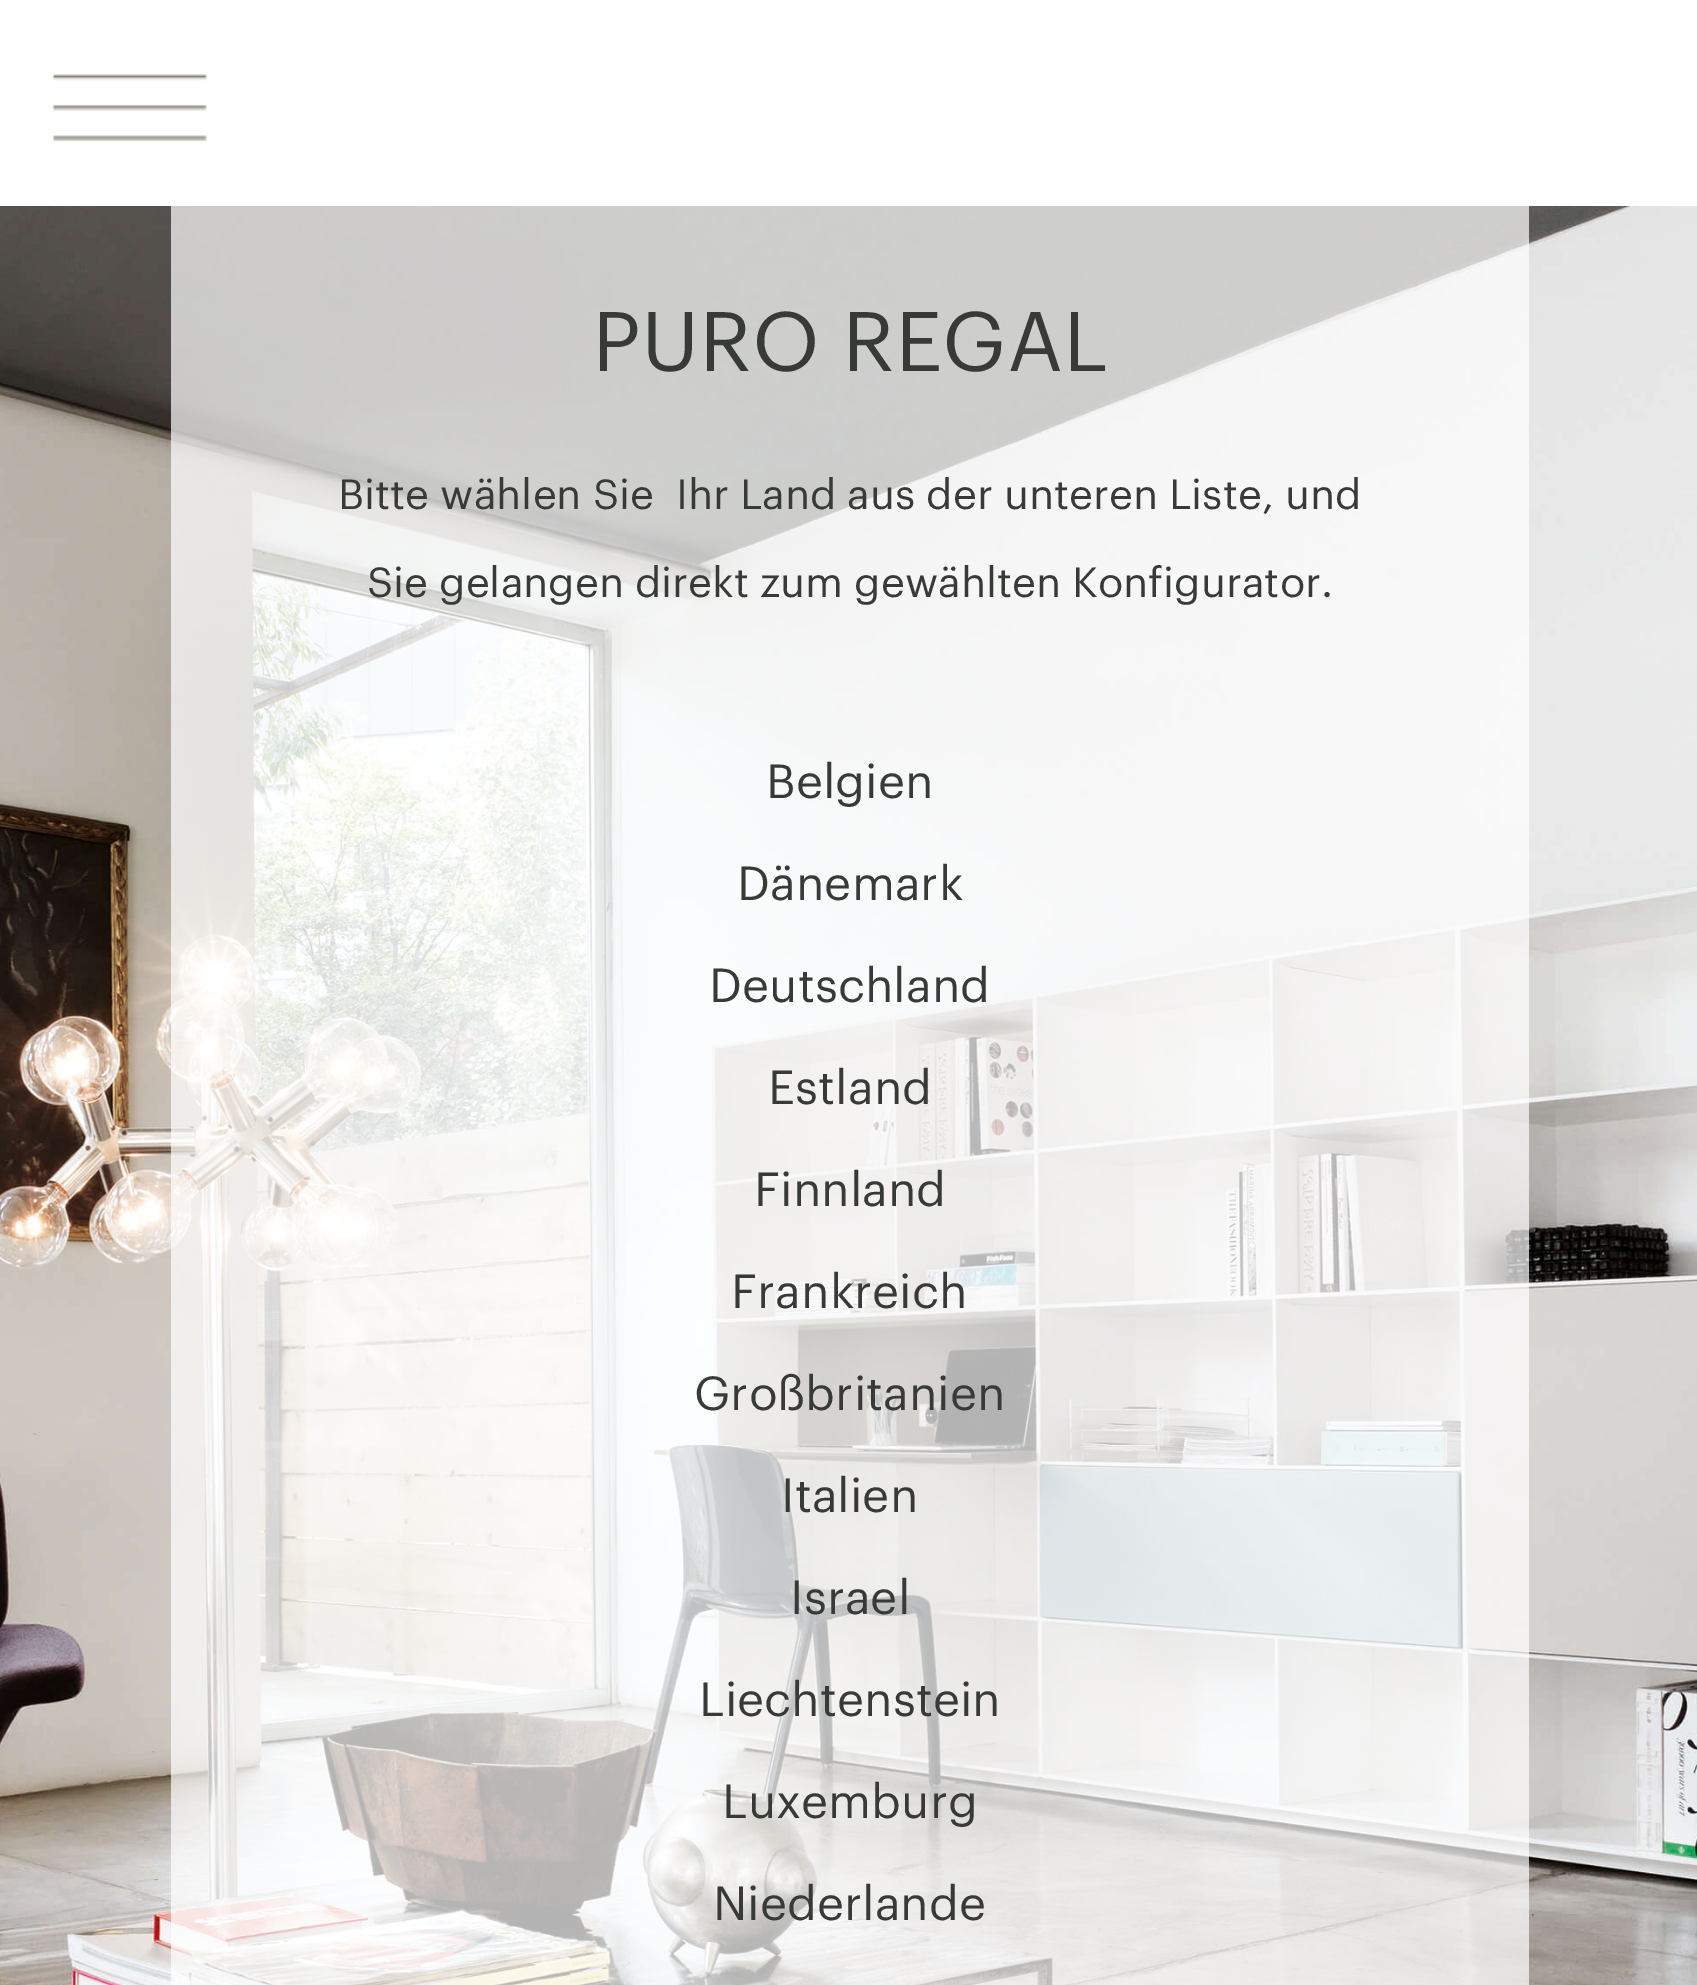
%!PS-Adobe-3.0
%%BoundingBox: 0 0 1697 1985
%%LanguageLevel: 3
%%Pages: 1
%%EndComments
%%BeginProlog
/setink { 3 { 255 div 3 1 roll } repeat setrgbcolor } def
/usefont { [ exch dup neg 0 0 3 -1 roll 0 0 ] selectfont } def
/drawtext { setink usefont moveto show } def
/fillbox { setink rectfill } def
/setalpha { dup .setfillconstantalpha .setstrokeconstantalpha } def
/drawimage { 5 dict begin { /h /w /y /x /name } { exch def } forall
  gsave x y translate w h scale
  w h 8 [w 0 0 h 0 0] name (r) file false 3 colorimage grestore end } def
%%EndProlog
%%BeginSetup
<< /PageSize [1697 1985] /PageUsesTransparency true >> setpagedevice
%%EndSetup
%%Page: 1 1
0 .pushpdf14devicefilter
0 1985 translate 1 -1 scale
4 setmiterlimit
0 0 1697 1985 255 255 255 fillbox
(assets/img1.rgb) 52 74 155 68 drawimage
(assets/img2.rgb) 0 206 1697 1779 drawimage
0.7 setalpha
171 206 1358 1779 255 255 255 fillbox
1 setalpha
(PURO REGAL) 592 371 /Graphik-Regular 82.5 55 58 54 drawtext
(Bitte wählen Sie  Ihr Land aus der unteren Liste, und) 338 509 /Graphik-Regular 41.25 55 58 54 drawtext
(Sie gelangen direkt zum gewählten Konfigurator.) 367 597 /Graphik-Regular 41.25 55 58 54 drawtext
(Belgien) 766 798 /Graphik-Regular 46.75 55 58 54 drawtext
(Dänemark) 737 900 /Graphik-Regular 46.75 55 58 54 drawtext
(Deutschland) 709 1002 /Graphik-Regular 46.75 55 58 54 drawtext
(Estland) 768 1104 /Graphik-Regular 46.75 55 58 54 drawtext
(Finnland) 754 1206 /Graphik-Regular 46.75 55 58 54 drawtext
(Frankreich) 731 1308 /Graphik-Regular 46.75 55 58 54 drawtext
(Großbritanien) 694 1410 /Graphik-Regular 46.75 55 58 54 drawtext
(Italien) 781 1512 /Graphik-Regular 46.75 55 58 54 drawtext
(Israel) 790 1614 /Graphik-Regular 46.75 55 58 54 drawtext
(Liechtenstein) 699 1716 /Graphik-Regular 46.75 55 58 54 drawtext
(Luxemburg) 722 1818 /Graphik-Regular 46.75 55 58 54 drawtext
(Niederlande) 713 1920 /Graphik-Regular 46.75 55 58 54 drawtext
.poppdf14devicefilter showpage
%%EOF
